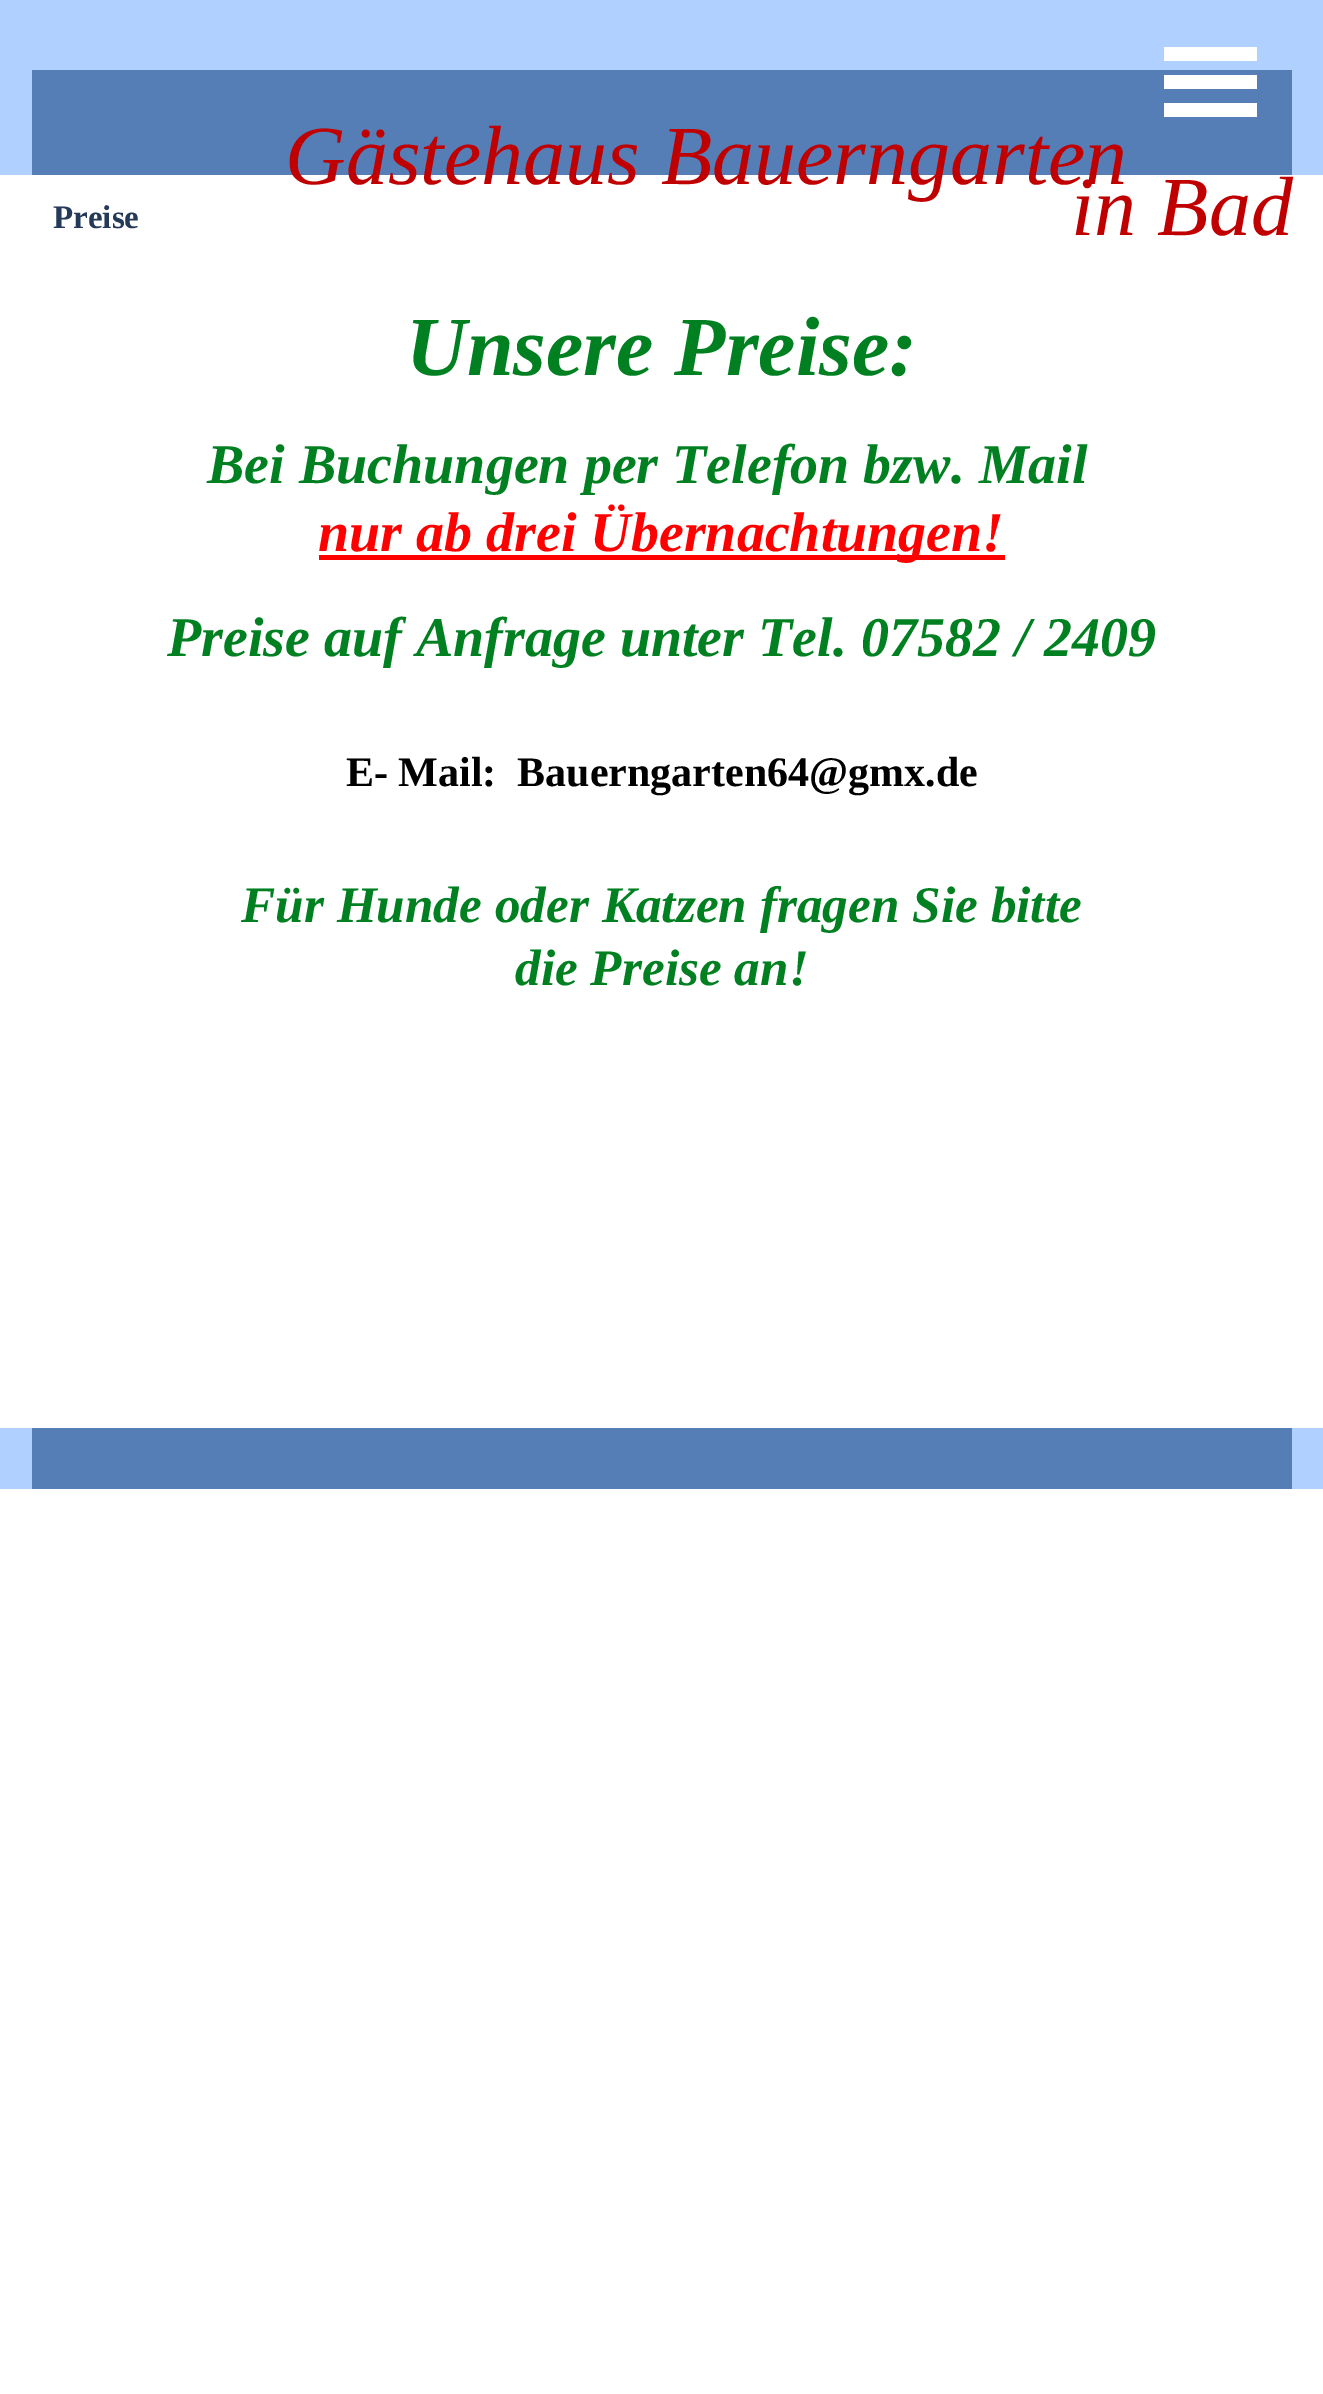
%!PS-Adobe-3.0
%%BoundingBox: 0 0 1323 2394
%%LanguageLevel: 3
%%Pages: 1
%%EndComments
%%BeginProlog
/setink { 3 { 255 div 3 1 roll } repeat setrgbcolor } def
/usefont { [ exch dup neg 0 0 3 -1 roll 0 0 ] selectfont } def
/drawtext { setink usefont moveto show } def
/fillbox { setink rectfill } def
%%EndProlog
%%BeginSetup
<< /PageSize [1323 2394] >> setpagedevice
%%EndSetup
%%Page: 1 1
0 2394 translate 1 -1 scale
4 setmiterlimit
0 0 1323 2394 255 255 255 fillbox
0 0 1323 175 176 209 255 fillbox
1164 47 93 14 255 255 255 fillbox
32 70 1260 105 86 126 182 fillbox
1164 75 93 14 255 255 255 fillbox
1164 103 93 14 255 255 255 fillbox
(Gästehaus Bauerngarten) 285 184 /LiberationSerif-Italic 84 192 0 0 drawtext
(in Bad) 1071 235 /LiberationSerif-Italic 84 192 0 0 drawtext
(Preise) 53 228 /LiberationSerif-Bold 33 37 58 88 drawtext
(Unsere Preise:) 406 375 /LiberationSerif-BoldItalic 84 0 128 32 drawtext
(Bei Buchungen per Telefon bzw. Mail) 207 483 /LiberationSerif-BoldItalic 56 0 128 32 drawtext
319 555 686 5 255 0 0 fillbox
(nur ab drei Übernachtungen!) 318 551 /LiberationSerif-BoldItalic 56 255 0 0 drawtext
(Preise auf Anfrage unter Tel. 07582 / 2409) 167 656 /LiberationSerif-BoldItalic 56 0 128 32 drawtext
(E- Mail:  Bauerngarten64@gmx.de) 346 786 /LiberationSerif-Bold 42 0 0 0 drawtext
(Für Hunde oder Katzen fragen Sie bitte) 241 922 /LiberationSerif-BoldItalic 51.3 0 128 32 drawtext
(die Preise an!) 515 985 /LiberationSerif-BoldItalic 51.3 0 128 32 drawtext
0 1428 1323 61 176 209 255 fillbox
32 1428 1260 61 86 126 182 fillbox
showpage
%%EOF
